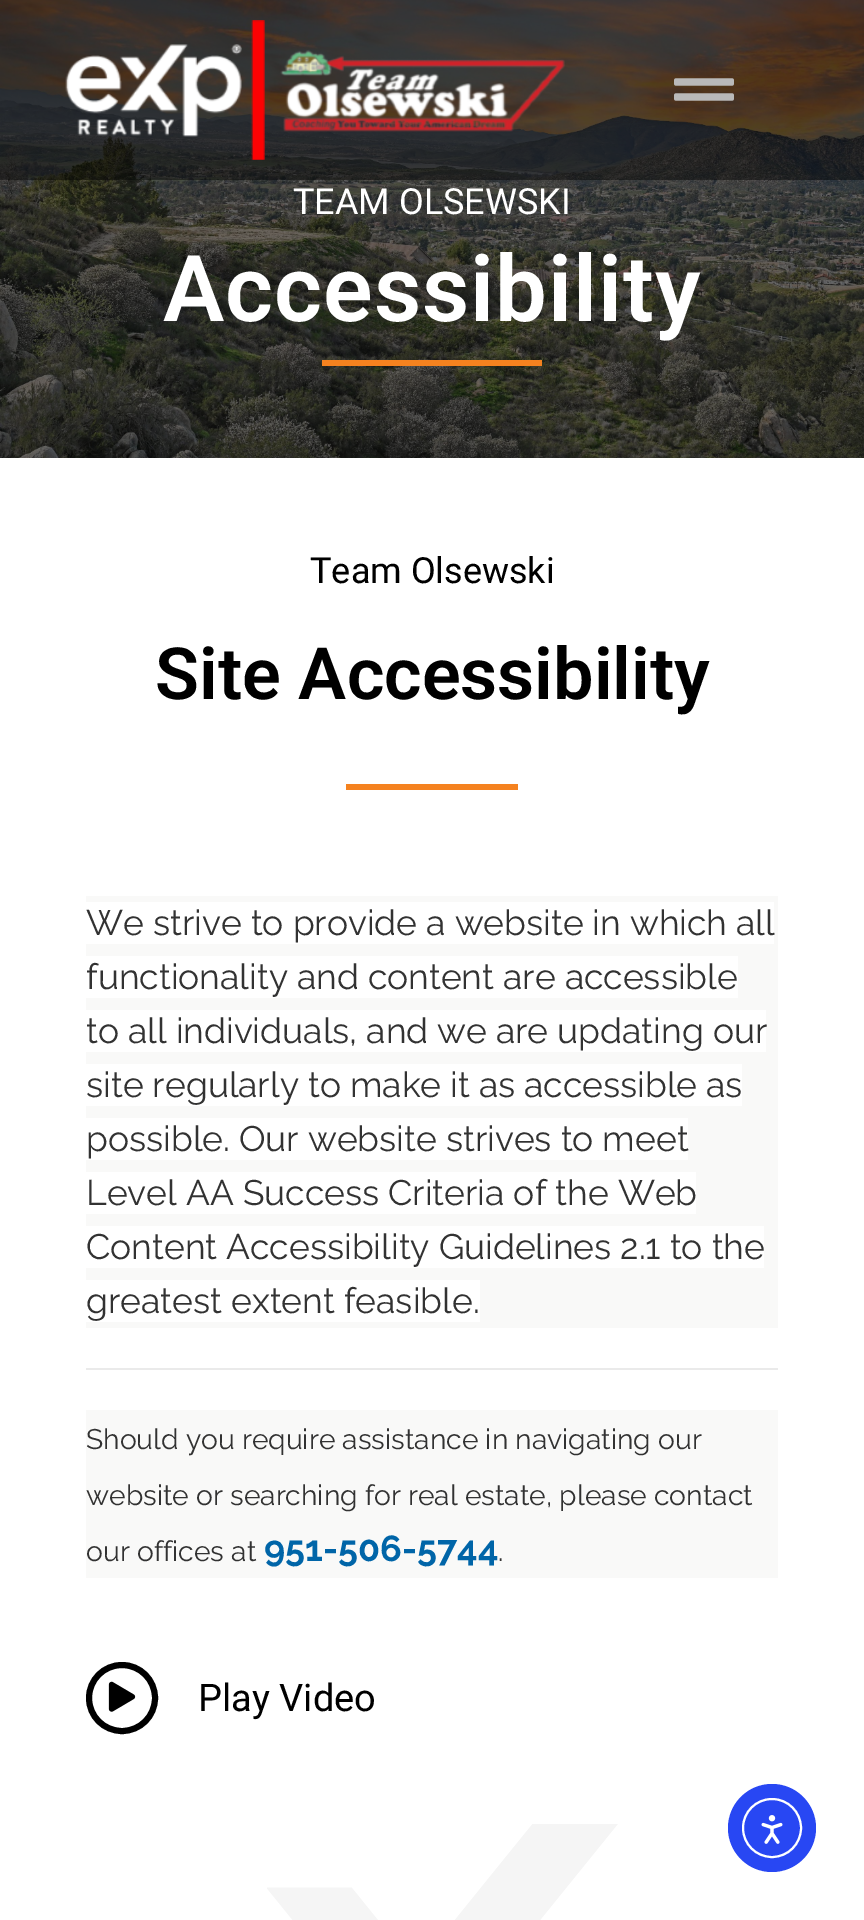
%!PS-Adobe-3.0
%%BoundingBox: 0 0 864 1920
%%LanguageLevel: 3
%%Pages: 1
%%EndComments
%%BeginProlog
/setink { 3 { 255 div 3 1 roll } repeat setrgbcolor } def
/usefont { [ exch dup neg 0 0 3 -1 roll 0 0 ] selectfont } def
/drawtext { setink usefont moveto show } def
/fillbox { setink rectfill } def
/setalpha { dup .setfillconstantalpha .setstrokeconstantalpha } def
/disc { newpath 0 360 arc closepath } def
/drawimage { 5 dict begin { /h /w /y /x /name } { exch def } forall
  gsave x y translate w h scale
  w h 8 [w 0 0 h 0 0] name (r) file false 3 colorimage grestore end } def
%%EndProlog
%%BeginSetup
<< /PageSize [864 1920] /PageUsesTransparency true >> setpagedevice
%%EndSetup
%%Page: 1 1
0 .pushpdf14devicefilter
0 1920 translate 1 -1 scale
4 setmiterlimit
0 0 864 1920 255 255 255 fillbox
(assets/img3.rgb) 0 0 864 458 drawimage
0.45 setalpha
0 0 864 180 0 0 0 fillbox
1 setalpha
(assets/img1.rgb) 65 20 500 140 drawimage
(assets/img2.rgb) 674 78 60 23 drawimage
(TEAM OLSEWSKI) 293 214 /Roboto-Regular 36 255 255 255 drawtext
/Roboto-SemiBold 92 usefont
163 321 moveto 1 0 (Accessibility) ashow
322 360 220 6 245 130 31 fillbox
(Team Olsewski) 310 583 /Roboto-Regular 36 0 0 0 drawtext
(Site Accessibility) 155 699 /Roboto-SemiBold 72 0 0 0 drawtext
346 784 172 6 245 130 31 fillbox
86 896 692 432 249 249 248 fillbox
86 902 688 42 255 255 255 fillbox
(We strive to provide a website in which all) 86 935 /Raleway-Regular 35.4 50 50 50 drawtext
86 956 652 42 255 255 255 fillbox
(functionality and content are accessible) 86 989 /Raleway-Regular 35.4 50 50 50 drawtext
86 1010 680 42 255 255 255 fillbox
(to all individuals, and we are updating our) 86 1043 /Raleway-Regular 35.4 50 50 50 drawtext
86 1064 656 42 255 255 255 fillbox
(site regularly to make it as accessible as) 86 1097 /Raleway-Regular 35.4 50 50 50 drawtext
86 1118 602 42 255 255 255 fillbox
(possible. Our website strives to meet) 86 1151 /Raleway-Regular 35.4 50 50 50 drawtext
86 1172 610 42 255 255 255 fillbox
(Level AA Success Criteria of the Web) 86 1205 /Raleway-Regular 35.4 50 50 50 drawtext
86 1226 678 42 255 255 255 fillbox
(Content Accessibility Guidelines 2.1 to the) 86 1259 /Raleway-Regular 35.4 50 50 50 drawtext
86 1280 394 42 255 255 255 fillbox
(greatest extent feasible.) 86 1313 /Raleway-Regular 35.4 50 50 50 drawtext
86 1368 692 2 234 234 234 fillbox
86 1410 692 168 249 249 248 fillbox
(Should you require assistance in navigating our) 86 1449 /Raleway-Regular 28.25 50 50 50 drawtext
(website or searching for real estate, please contact) 86 1505 /Raleway-Regular 28.25 50 50 50 drawtext
(our offices at) 86 1561 /Raleway-Regular 28.25 50 50 50 drawtext
(951-506-5744) 264 1561 /Raleway-Bold 36 0 101 168 drawtext
(.) 498 1561 /Raleway-Regular 28.25 50 50 50 drawtext
0 0 0 setink
6 setlinewidth
122 1698 33 disc stroke
(assets/img4.rgb) 108 1681 28 31 drawimage
(Play Video) 198 1711 /Roboto-Regular 38 0 0 0 drawtext
(assets/img5.rgb) 267 1824 351 96 drawimage
40 71 243 setink
772 1828 44 disc fill
255 255 255 setink
2 setlinewidth
772 1828 29 disc stroke
(assets/img6.rgb) 761 1815 22 29 drawimage
.poppdf14devicefilter showpage
%%EOF
